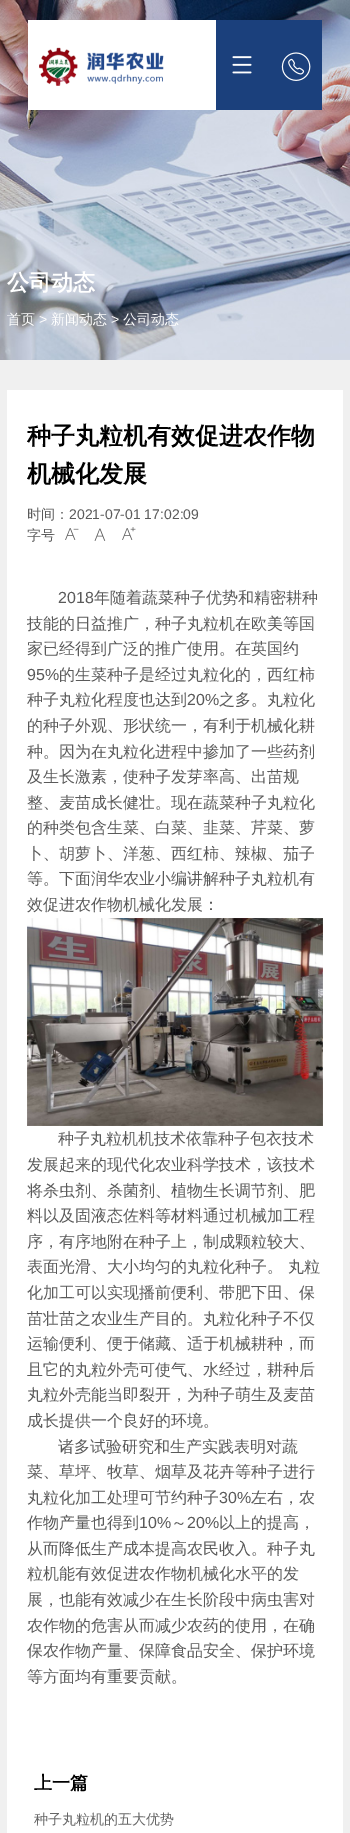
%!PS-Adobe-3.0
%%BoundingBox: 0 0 350 1833
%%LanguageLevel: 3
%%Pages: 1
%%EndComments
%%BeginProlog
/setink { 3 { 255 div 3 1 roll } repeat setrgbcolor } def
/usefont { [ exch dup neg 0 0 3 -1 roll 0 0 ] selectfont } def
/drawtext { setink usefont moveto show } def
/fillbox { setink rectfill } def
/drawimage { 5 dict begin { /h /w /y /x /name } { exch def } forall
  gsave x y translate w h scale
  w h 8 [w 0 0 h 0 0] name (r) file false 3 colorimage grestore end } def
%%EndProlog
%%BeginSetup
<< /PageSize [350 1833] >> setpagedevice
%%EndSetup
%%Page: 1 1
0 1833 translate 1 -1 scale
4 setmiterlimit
0 0 350 1833 240 240 240 fillbox
(assets/img4.rgb) 0 0 350 360 drawimage
28 20 188 90 255 255 255 fillbox
(assets/img1.rgb) 39 47 125 39 drawimage
216 20 106 90 27 64 124 fillbox
(assets/img2.rgb) 232 56 20 18 drawimage
(assets/img3.rgb) 281 52 30 29 drawimage
(公司动态) 7 290 /WenQuanYiZenHei-Bold 22 255 255 255 drawtext
(首页) 7 324 /WenQuanYiZenHei-Medium 14 255 255 255 drawtext
(>) 39 324 /LiberationSans-Regular 14 255 255 255 drawtext
(新闻动态) 51 324 /WenQuanYiZenHei-Medium 14 255 255 255 drawtext
(>) 111 324 /LiberationSans-Regular 14 255 255 255 drawtext
(公司动态) 123 324 /WenQuanYiZenHei-Medium 14 255 255 255 drawtext
7 390 336 1443 255 255 255 fillbox
(种子丸粒机有效促进农作物) 27 444 /WenQuanYiZenHei-Bold 24 0 0 0 drawtext
(机械化发展) 27 482 /WenQuanYiZenHei-Bold 24 0 0 0 drawtext
(时间：) 27 519 /WenQuanYiZenHei-Medium 14 90 90 90 drawtext
(2021-07-01 17:02:09) 69 519 /LiberationSans-Regular 14 90 90 90 drawtext
(字号) 27 540 /WenQuanYiZenHei-Medium 14 90 90 90 drawtext
(assets/img5.rgb) 65 528 14 12 drawimage
(assets/img6.rgb) 94 528 12 13 drawimage
(assets/img7.rgb) 122 527 14 13 drawimage
(2018) 58 603 /LiberationSans-Regular 16 90 90 90 drawtext
(年随着蔬菜种子优势和精密耕种) 94 603 /WenQuanYiZenHei-Medium 16 90 90 90 drawtext
(技能的日益推广，种子丸粒机在欧美等国) 27 629 /WenQuanYiZenHei-Medium 16 90 90 90 drawtext
(家已经得到广泛的推广使用。在英国约) 27 654 /WenQuanYiZenHei-Medium 16 90 90 90 drawtext
(95%) 27 680 /LiberationSans-Regular 16 90 90 90 drawtext
(的生菜种子是经过丸粒化的，西红柿) 59 680 /WenQuanYiZenHei-Medium 16 90 90 90 drawtext
(种子丸粒化程度也达到) 27 705 /WenQuanYiZenHei-Medium 16 90 90 90 drawtext
(20%) 187 705 /LiberationSans-Regular 16 90 90 90 drawtext
(之多。丸粒化) 219 705 /WenQuanYiZenHei-Medium 16 90 90 90 drawtext
(的种子外观、形状统一，有利于机械化耕) 27 731 /WenQuanYiZenHei-Medium 16 90 90 90 drawtext
(种。因为在丸粒化进程中掺加了一些药剂) 27 757 /WenQuanYiZenHei-Medium 16 90 90 90 drawtext
(及生长激素，使种子发芽率高、出苗规) 27 782 /WenQuanYiZenHei-Medium 16 90 90 90 drawtext
(整、麦苗成长健壮。现在蔬菜种子丸粒化) 27 808 /WenQuanYiZenHei-Medium 16 90 90 90 drawtext
(的种类包含生菜、白菜、韭菜、芹菜、萝) 27 833 /WenQuanYiZenHei-Medium 16 90 90 90 drawtext
(卜、胡萝卜、洋葱、西红柿、辣椒、茄子) 27 859 /WenQuanYiZenHei-Medium 16 90 90 90 drawtext
(等。下面润华农业小编讲解种子丸粒机有) 27 884 /WenQuanYiZenHei-Medium 16 90 90 90 drawtext
(效促进农作物机械化发展：) 27 910 /WenQuanYiZenHei-Medium 16 90 90 90 drawtext
(assets/img8.rgb) 27 918 296 208 drawimage
(种子丸粒机机技术依靠种子包衣技术) 58 1144 /WenQuanYiZenHei-Medium 16 90 90 90 drawtext
(发展起来的现代化农业科学技术，该技术) 27 1170 /WenQuanYiZenHei-Medium 16 90 90 90 drawtext
(将杀虫剂、杀菌剂、植物生长调节剂、肥) 27 1196 /WenQuanYiZenHei-Medium 16 90 90 90 drawtext
(料以及固液态佐料等材料通过机械加工程) 27 1221 /WenQuanYiZenHei-Medium 16 90 90 90 drawtext
(序，有序地附在种子上，制成颗粒较大、) 27 1247 /WenQuanYiZenHei-Medium 16 90 90 90 drawtext
(表面光滑、大小均匀的丸粒化种子。 丸粒) 27 1272 /WenQuanYiZenHei-Medium 16 90 90 90 drawtext
(化加工可以实现播前便利、带肥下田、保) 27 1298 /WenQuanYiZenHei-Medium 16 90 90 90 drawtext
(苗壮苗之农业生产目的。丸粒化种子不仅) 27 1324 /WenQuanYiZenHei-Medium 16 90 90 90 drawtext
(运输便利、便于储藏、适于机械耕种，而) 27 1349 /WenQuanYiZenHei-Medium 16 90 90 90 drawtext
(且它的丸粒外壳可使气、水经过，耕种后) 27 1375 /WenQuanYiZenHei-Medium 16 90 90 90 drawtext
(丸粒外壳能当即裂开，为种子萌生及麦苗) 27 1400 /WenQuanYiZenHei-Medium 16 90 90 90 drawtext
(成长提供一个良好的环境。) 27 1426 /WenQuanYiZenHei-Medium 16 90 90 90 drawtext
(诸多试验研究和生产实践表明对蔬) 58 1452 /WenQuanYiZenHei-Medium 16 90 90 90 drawtext
(菜、草坪、牧草、烟草及花卉等种子进行) 27 1477 /WenQuanYiZenHei-Medium 16 90 90 90 drawtext
(丸粒化加工处理可节约种子) 27 1503 /WenQuanYiZenHei-Medium 16 90 90 90 drawtext
(30%) 219 1503 /LiberationSans-Regular 16 90 90 90 drawtext
(左右，农) 251 1503 /WenQuanYiZenHei-Medium 16 90 90 90 drawtext
(作物产量也得到) 27 1528 /WenQuanYiZenHei-Medium 16 90 90 90 drawtext
(10%) 139 1528 /LiberationSans-Regular 16 90 90 90 drawtext
(～) 171 1528 /WenQuanYiZenHei-Medium 16 90 90 90 drawtext
(20%) 187 1528 /LiberationSans-Regular 16 90 90 90 drawtext
(以上的提高，) 219 1528 /WenQuanYiZenHei-Medium 16 90 90 90 drawtext
(从而降低生产成本提高农民收入。种子丸) 27 1554 /WenQuanYiZenHei-Medium 16 90 90 90 drawtext
(粒机能有效促进农作物机械化水平的发) 27 1579 /WenQuanYiZenHei-Medium 16 90 90 90 drawtext
(展，也能有效减少在生长阶段中病虫害对) 27 1605 /WenQuanYiZenHei-Medium 16 90 90 90 drawtext
(农作物的危害从而减少农药的使用，在确) 27 1631 /WenQuanYiZenHei-Medium 16 90 90 90 drawtext
(保农作物产量、保障食品安全、保护环境) 27 1656 /WenQuanYiZenHei-Medium 16 90 90 90 drawtext
(等方面均有重要贡献。) 27 1682 /WenQuanYiZenHei-Medium 16 90 90 90 drawtext
(上一篇) 34 1789 /WenQuanYiZenHei-Bold 18 0 0 0 drawtext
(种子丸粒机的五大优势) 34 1824 /WenQuanYiZenHei-Medium 14 102 102 102 drawtext
showpage
%%EOF
